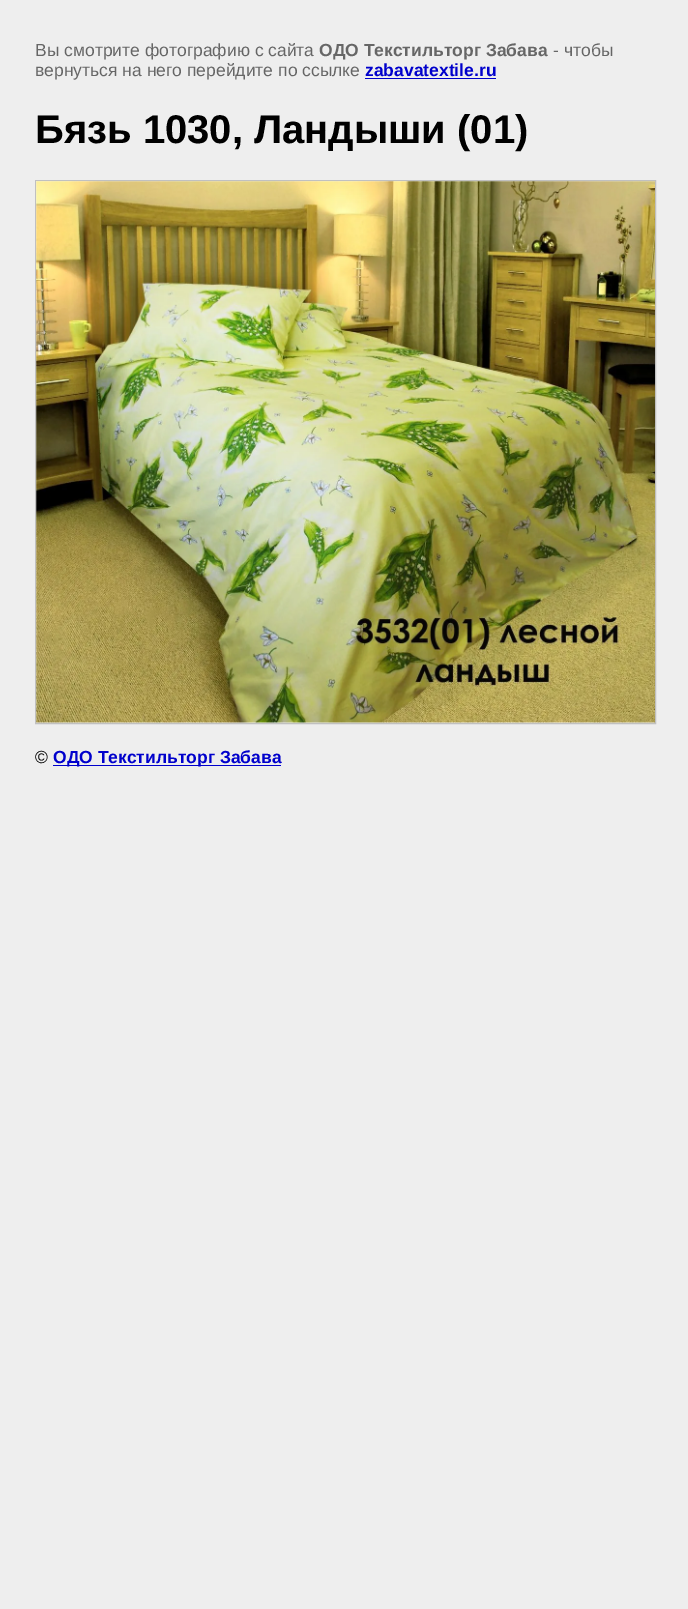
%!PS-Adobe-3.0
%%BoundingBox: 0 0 688 1609
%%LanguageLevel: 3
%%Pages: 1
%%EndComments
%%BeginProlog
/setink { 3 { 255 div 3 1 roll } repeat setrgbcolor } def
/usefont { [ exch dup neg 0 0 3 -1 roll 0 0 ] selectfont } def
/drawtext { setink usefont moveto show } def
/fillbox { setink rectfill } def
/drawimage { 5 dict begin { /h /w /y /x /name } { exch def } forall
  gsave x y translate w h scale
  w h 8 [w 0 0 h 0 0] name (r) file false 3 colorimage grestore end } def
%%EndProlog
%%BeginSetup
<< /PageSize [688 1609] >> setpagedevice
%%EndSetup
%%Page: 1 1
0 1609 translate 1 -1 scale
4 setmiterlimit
0 0 688 1609 238 238 238 fillbox
(Вы смотрите фотографию с сайта) 35 56 /LiberationSans-Regular 17.5 102 102 102 drawtext
(ОДО Текстильторг Забава) 319 56 /LiberationSans-Bold 17.5 102 102 102 drawtext
(- чтобы) 553 56 /LiberationSans-Regular 17.5 102 102 102 drawtext
(вернуться на него перейдите по ссылке) 35 76 /LiberationSans-Regular 17.5 102 102 102 drawtext
(zabavatextile.ru) 365 76 /LiberationSans-Bold 17.5 0 0 204 drawtext
365 78 131 1 0 0 204 fillbox
(Бязь 1030, Ландыши \(01\)) 35 143 /LiberationSans-Bold 40 0 0 0 drawtext
192 192 192 setink
35.5 180.5 620 543 rectstroke
(assets/img1.rgb) 36 181 619 542 drawimage
(©) 35 763 /LiberationSans-Regular 17.5 0 0 0 drawtext
53 765 228 1 0 0 204 fillbox
(ОДО Текстильторг Забава) 53 763 /LiberationSans-Bold 17.5 0 0 204 drawtext
showpage
%%EOF
